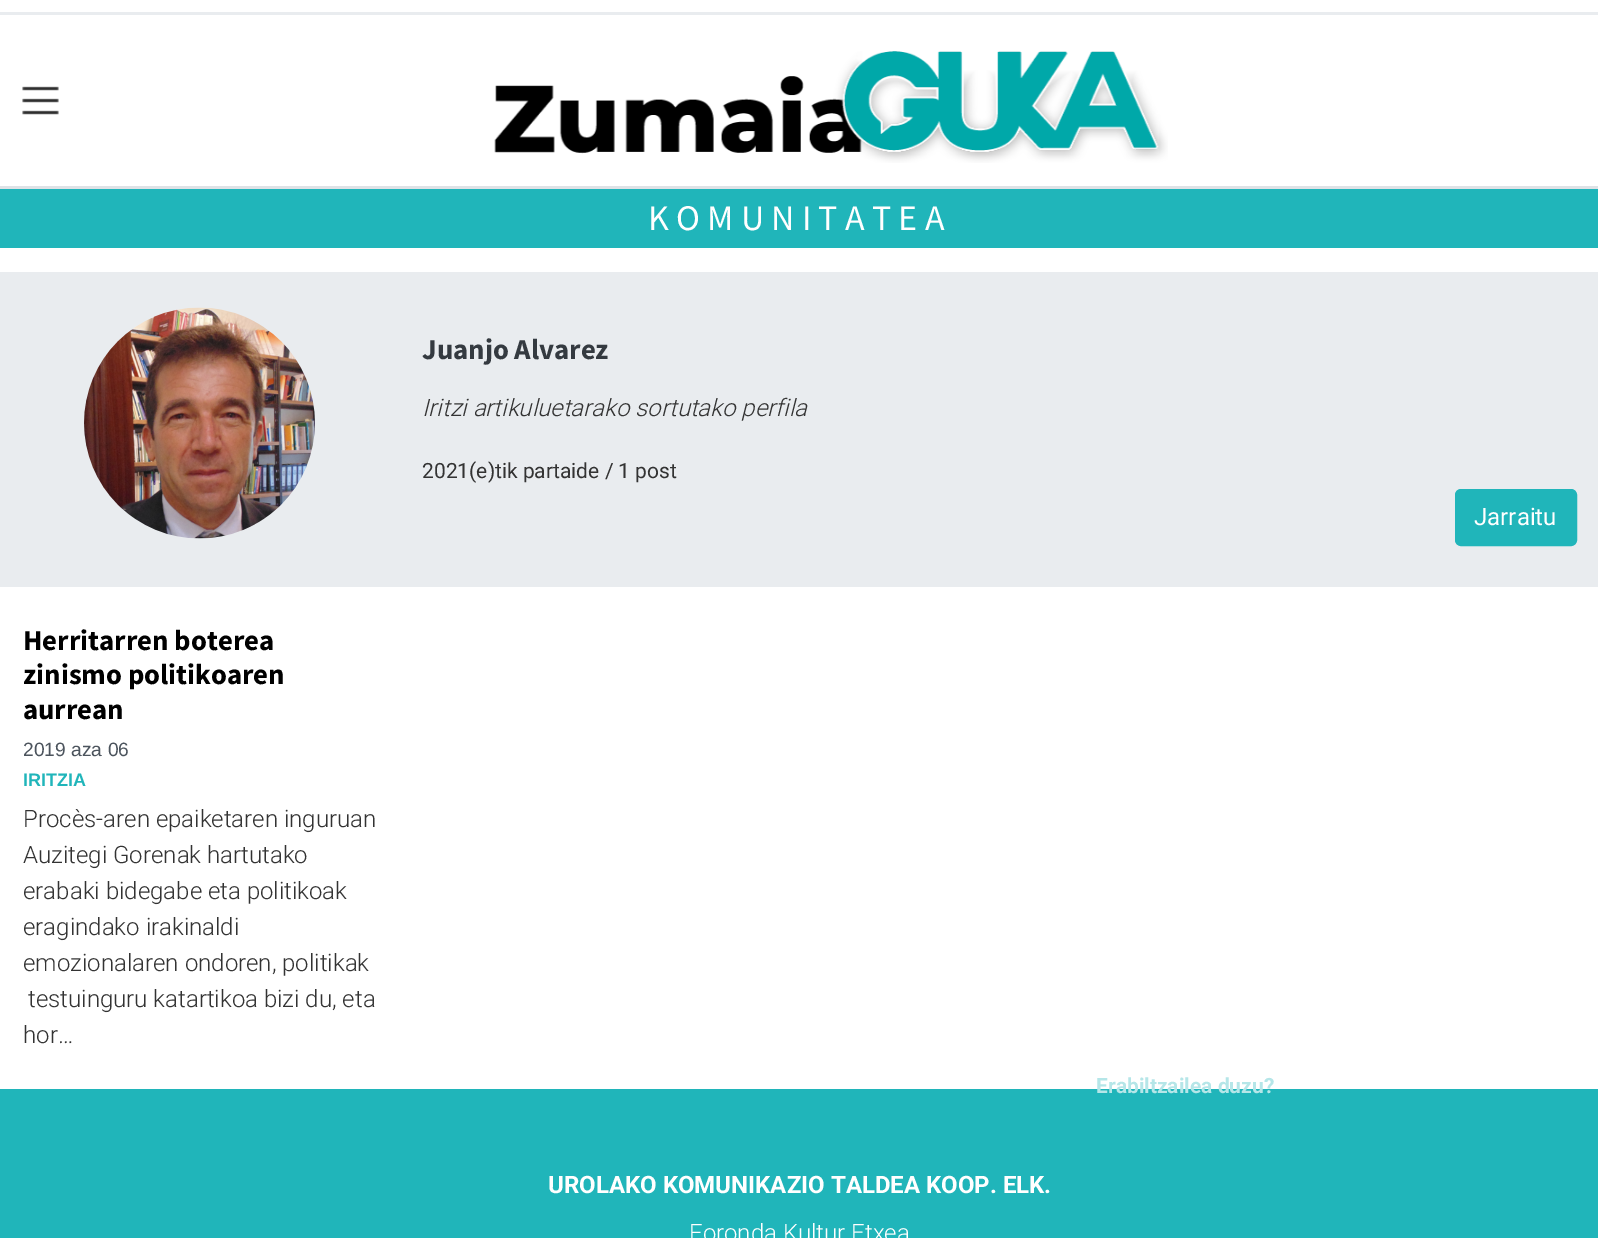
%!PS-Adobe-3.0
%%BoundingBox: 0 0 1598 1238
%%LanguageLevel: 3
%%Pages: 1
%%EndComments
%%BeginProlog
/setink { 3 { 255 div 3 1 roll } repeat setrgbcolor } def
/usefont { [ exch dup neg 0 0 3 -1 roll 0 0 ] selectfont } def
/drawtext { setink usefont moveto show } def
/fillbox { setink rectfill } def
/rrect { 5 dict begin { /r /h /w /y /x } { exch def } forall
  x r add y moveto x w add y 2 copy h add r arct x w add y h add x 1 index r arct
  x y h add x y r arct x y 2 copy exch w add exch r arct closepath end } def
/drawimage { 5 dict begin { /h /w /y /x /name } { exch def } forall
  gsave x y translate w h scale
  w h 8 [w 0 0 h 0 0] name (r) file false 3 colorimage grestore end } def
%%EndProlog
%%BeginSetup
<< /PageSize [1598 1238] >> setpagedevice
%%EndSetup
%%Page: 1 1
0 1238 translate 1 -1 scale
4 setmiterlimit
0 0 1598 1238 255 255 255 fillbox
0 12 1598 3 233 236 239 fillbox
(assets/img1.rgb) 22 86 37 29 drawimage
(assets/img2.rgb) 494 51 674 112 drawimage
0 186 1598 3 222 226 230 fillbox
0 189 1598 59 32 181 186 fillbox
/SourceSansPro-Regular 36 usefont
255 255 255 setink
648 230 moveto 7.25 0 (KOMUNITATEA) ashow
(Herritarren boterea) 23 650 /SourceSansPro-Bold 28.75 0 0 0 drawtext
(zinismo politikoaren) 23 684 /SourceSansPro-Bold 28.75 0 0 0 drawtext
(aurrean) 23 719 /SourceSansPro-Bold 28.75 0 0 0 drawtext
(2019 aza 06) 23 756 /LiberationSans-Regular 19.25 76 84 93 drawtext
(IRITZIA) 23 786 /LiberationSans-Bold 18 32 181 186 drawtext
(Procès-aren epaiketaren inguruan) 23 827 /Roboto-Light 24 51 51 51 drawtext
(Auzitegi Gorenak hartutako) 23 863 /Roboto-Light 24 51 51 51 drawtext
(erabaki bidegabe eta politikoak) 23 899 /Roboto-Light 24 51 51 51 drawtext
(eragindako irakinaldi) 23 935 /Roboto-Light 24 51 51 51 drawtext
(emozionalaren ondoren, politikak) 23 971 /Roboto-Light 24 51 51 51 drawtext
(testuinguru katartikoa bizi du, eta) 28 1007 /Roboto-Light 24 51 51 51 drawtext
(hor…) 23 1043 /Roboto-Light 24 51 51 51 drawtext
0 272 1598 315 233 236 239 fillbox
(assets/img3.rgb) 84 307 231 232 drawimage
(Juanjo Alvarez) 422 359 /SourceSansPro-Bold 28.75 52 58 64 drawtext
(Iritzi artikuluetarako sortutako perfila) 422 416 /Roboto-LightItalic 24 51 51 51 drawtext
(2021\(e\)tik partaide / 1 post) 422 478 /Roboto-Regular 21 51 51 51 drawtext
32 181 186 setink
1456 490 120 55 5 rrect gsave fill grestore
2 setlinewidth
stroke
(Jarraitu) 1474 525 /Roboto-Regular 24 255 255 255 drawtext
0 1089 1598 149 32 181 186 fillbox
(Erabiltzailea duzu?) 1096 1093 /Roboto-Bold 21 181 230 232 drawtext
(UROLAKO KOMUNIKAZIO TALDEA KOOP. ELK.) 548 1193 /Roboto-Bold 24 255 255 255 drawtext
(Foronda Kultur Etxea) 689 1241 /Roboto-Light 24 255 255 255 drawtext
showpage
%%EOF
